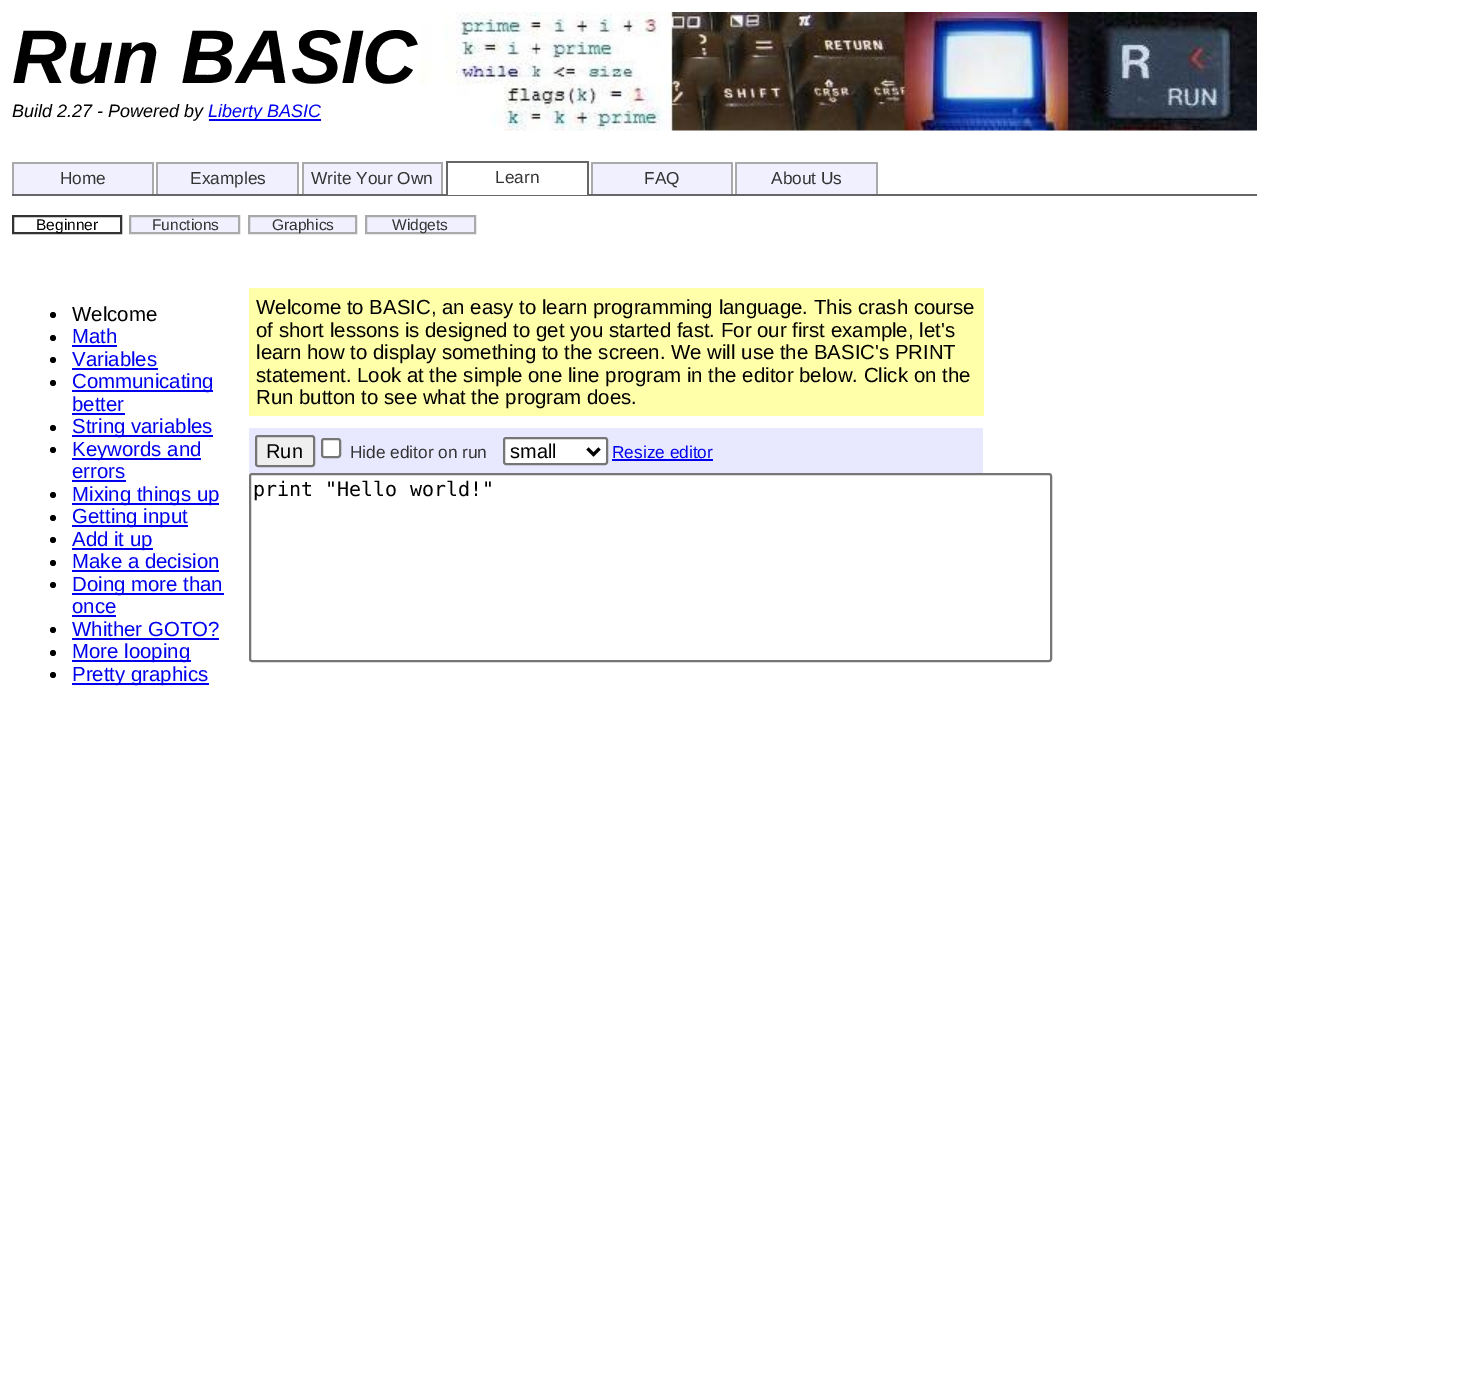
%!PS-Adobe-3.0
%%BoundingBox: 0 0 1473 1393
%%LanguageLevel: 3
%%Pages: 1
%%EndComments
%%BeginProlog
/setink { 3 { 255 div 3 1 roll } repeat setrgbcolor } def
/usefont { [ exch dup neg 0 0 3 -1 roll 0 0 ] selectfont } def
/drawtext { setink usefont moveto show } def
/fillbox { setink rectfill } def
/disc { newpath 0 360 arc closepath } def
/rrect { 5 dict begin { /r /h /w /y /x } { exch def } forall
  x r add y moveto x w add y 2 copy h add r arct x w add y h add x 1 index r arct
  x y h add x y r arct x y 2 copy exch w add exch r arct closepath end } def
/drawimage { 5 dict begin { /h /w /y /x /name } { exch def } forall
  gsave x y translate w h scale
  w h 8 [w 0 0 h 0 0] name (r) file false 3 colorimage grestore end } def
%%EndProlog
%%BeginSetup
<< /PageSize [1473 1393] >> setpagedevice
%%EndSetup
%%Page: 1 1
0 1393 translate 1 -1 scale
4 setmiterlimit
0 0 1473 1393 255 255 255 fillbox
(assets/img1.rgb) 420 12 837 119 drawimage
(Run BASIC) 12 83 /LiberationSans-BoldItalic 76 0 0 0 drawtext
(Build 2.27 - Powered by) 12 117 /LiberationSans-Italic 18 0 0 0 drawtext
209 119 112 2 0 0 238 fillbox
(Liberty BASIC) 208 117 /LiberationSans-Italic 18 0 0 238 drawtext
14 164 138 30 240 240 255 fillbox
12 162 141 2 170 170 170 fillbox
152 162 2 32 170 170 170 fillbox
12 162 2 32 170 170 170 fillbox
(Home) 60 184 /LiberationSans-Regular 17.25 51 51 51 drawtext
158 164 139 30 240 240 255 fillbox
156 162 143 2 170 170 170 fillbox
297 162 2 32 170 170 170 fillbox
156 162 2 32 170 170 170 fillbox
(Examples) 190 184 /LiberationSans-Regular 17.25 51 51 51 drawtext
304 164 137 30 240 240 255 fillbox
302 162 141 2 170 170 170 fillbox
441 162 2 32 170 170 170 fillbox
302 162 2 32 170 170 170 fillbox
(Write Your Own) 311 184 /LiberationSans-Regular 17.25 51 51 51 drawtext
12 194 1245 2 102 102 102 fillbox
448 194 139 1 255 255 255 fillbox
446 161 142 2 102 102 102 fillbox
587 161 2 34 102 102 102 fillbox
446 161 2 34 102 102 102 fillbox
(Learn) 495 183 /LiberationSans-Regular 17.25 51 51 51 drawtext
593 164 138 30 240 240 255 fillbox
591 162 141 2 170 170 170 fillbox
731 162 2 32 170 170 170 fillbox
591 162 2 32 170 170 170 fillbox
(FAQ) 644 184 /LiberationSans-Regular 17.25 51 51 51 drawtext
737 164 139 30 240 240 255 fillbox
735 162 143 2 170 170 170 fillbox
876 162 2 32 170 170 170 fillbox
735 162 2 32 170 170 170 fillbox
(About Us) 771 184 /LiberationSans-Regular 17.25 51 51 51 drawtext
2 setlinewidth
13 216 108 17 rectstroke
(Beginner) 36 230 /LiberationSans-Regular 15.5 0 0 0 drawtext
240 240 255 setink
130 216 moveto 239 216 lineto 239 233 lineto 130 233 lineto closepath gsave fill grestore
170 170 170 setink
stroke
(Functions) 152 230 /LiberationSans-Regular 15.5 51 51 51 drawtext
240 240 255 setink
249 216 moveto 356 216 lineto 356 233 lineto 249 233 lineto closepath gsave fill grestore
170 170 170 setink
stroke
(Graphics) 272 230 /LiberationSans-Regular 15.5 51 51 51 drawtext
240 240 255 setink
366 216 moveto 475 216 lineto 475 233 lineto 366 233 lineto closepath gsave fill grestore
170 170 170 setink
stroke
(Widgets) 392 230 /LiberationSans-Regular 15.5 51 51 51 drawtext
0 0 0 setink
53 315 3 disc fill
(Welcome) 72 321 /LiberationSans-Regular 20.4 0 0 0 drawtext
53 338 3 disc fill
(Math) 72 343 /LiberationSans-Regular 20.4 0 0 238 drawtext
72 345 45 2 0 0 238 fillbox
0 0 0 setink
53 360 3 disc fill
(Variables) 72 366 /LiberationSans-Regular 20.4 0 0 238 drawtext
72 368 86 2 0 0 238 fillbox
0 0 0 setink
53 383 3 disc fill
72 390 141 2 0 0 238 fillbox
(Communicating) 72 388 /LiberationSans-Regular 20.4 0 0 238 drawtext
(better) 72 411 /LiberationSans-Regular 20.4 0 0 238 drawtext
72 413 53 2 0 0 238 fillbox
0 0 0 setink
53 428 3 disc fill
72 435 141 2 0 0 238 fillbox
(String variables) 72 433 /LiberationSans-Regular 20.4 0 0 238 drawtext
0 0 0 setink
53 450 3 disc fill
72 458 129 2 0 0 238 fillbox
(Keywords and) 72 456 /LiberationSans-Regular 20.4 0 0 238 drawtext
(errors) 72 478 /LiberationSans-Regular 20.4 0 0 238 drawtext
72 480 54 2 0 0 238 fillbox
0 0 0 setink
53 495 3 disc fill
72 503 147 2 0 0 238 fillbox
(Mixing things up) 72 501 /LiberationSans-Regular 20.4 0 0 238 drawtext
0 0 0 setink
53 518 3 disc fill
72 525 116 2 0 0 238 fillbox
(Getting input) 72 523 /LiberationSans-Regular 20.4 0 0 238 drawtext
0 0 0 setink
53 540 3 disc fill
72 548 81 2 0 0 238 fillbox
(Add it up) 72 546 /LiberationSans-Regular 20.4 0 0 238 drawtext
0 0 0 setink
53 563 3 disc fill
(Make a decision) 72 568 /LiberationSans-Regular 20.4 0 0 238 drawtext
72 570 147 2 0 0 238 fillbox
0 0 0 setink
53 585 3 disc fill
72 593 152 2 0 0 238 fillbox
(Doing more than) 72 591 /LiberationSans-Regular 20.4 0 0 238 drawtext
(once) 72 613 /LiberationSans-Regular 20.4 0 0 238 drawtext
72 615 44 2 0 0 238 fillbox
0 0 0 setink
53 630 3 disc fill
(Whither GOTO?) 72 636 /LiberationSans-Regular 20.4 0 0 238 drawtext
72 638 147 2 0 0 238 fillbox
0 0 0 setink
53 653 3 disc fill
72 660 119 2 0 0 238 fillbox
(More looping) 72 658 /LiberationSans-Regular 20.4 0 0 238 drawtext
0 0 0 setink
53 675 3 disc fill
72 683 137 2 0 0 238 fillbox
(Pretty graphics) 72 681 /LiberationSans-Regular 20.4 0 0 238 drawtext
249 288 735 128 255 255 170 fillbox
(Welcome to BASIC, an easy to learn programming language. This crash course) 256 314 /LiberationSans-Regular 20.4 0 0 0 drawtext
(of short lessons is designed to get you started fast. For our first example, let's) 256 337 /LiberationSans-Regular 20.4 0 0 0 drawtext
(learn how to display something to the screen. We will use the BASIC's PRINT) 256 359 /LiberationSans-Regular 20.4 0 0 0 drawtext
(statement. Look at the simple one line program in the editor below. Click on the) 256 382 /LiberationSans-Regular 20.4 0 0 0 drawtext
(Run button to see what the program does.) 256 404 /LiberationSans-Regular 20.4 0 0 0 drawtext
249 428 734 45 232 232 255 fillbox
239 239 239 setink
256 436 58 30 2 rrect gsave fill grestore
118 118 118 setink
stroke
(Run) 266 458 /LiberationSans-Regular 20 0 0 0 drawtext
255 255 255 setink
322 439 18 18 2 rrect gsave fill grestore
118 118 118 setink
stroke
(Hide editor on run) 350 458 /LiberationSans-Regular 17.25 51 51 51 drawtext
255 255 255 setink
504 438 103 26 2 rrect gsave fill grestore
118 118 118 setink
stroke
0 0 0 setink
3 setlinewidth
587.5 448.5 moveto 593.5 454.5 lineto 599.5 448.5 lineto stroke
(small) 510 458 /LiberationSans-Regular 20 0 0 0 drawtext
(Resize editor) 612 458 /LiberationSans-Regular 17.25 0 0 238 drawtext
612 459 101 2 0 0 238 fillbox
118 118 118 setink
2 setlinewidth
250 474 801 187 2 rrect stroke
(print "Hello world!") 253 496 /DejaVuSansMono-Regular 20 0 0 0 drawtext
showpage
%%EOF
